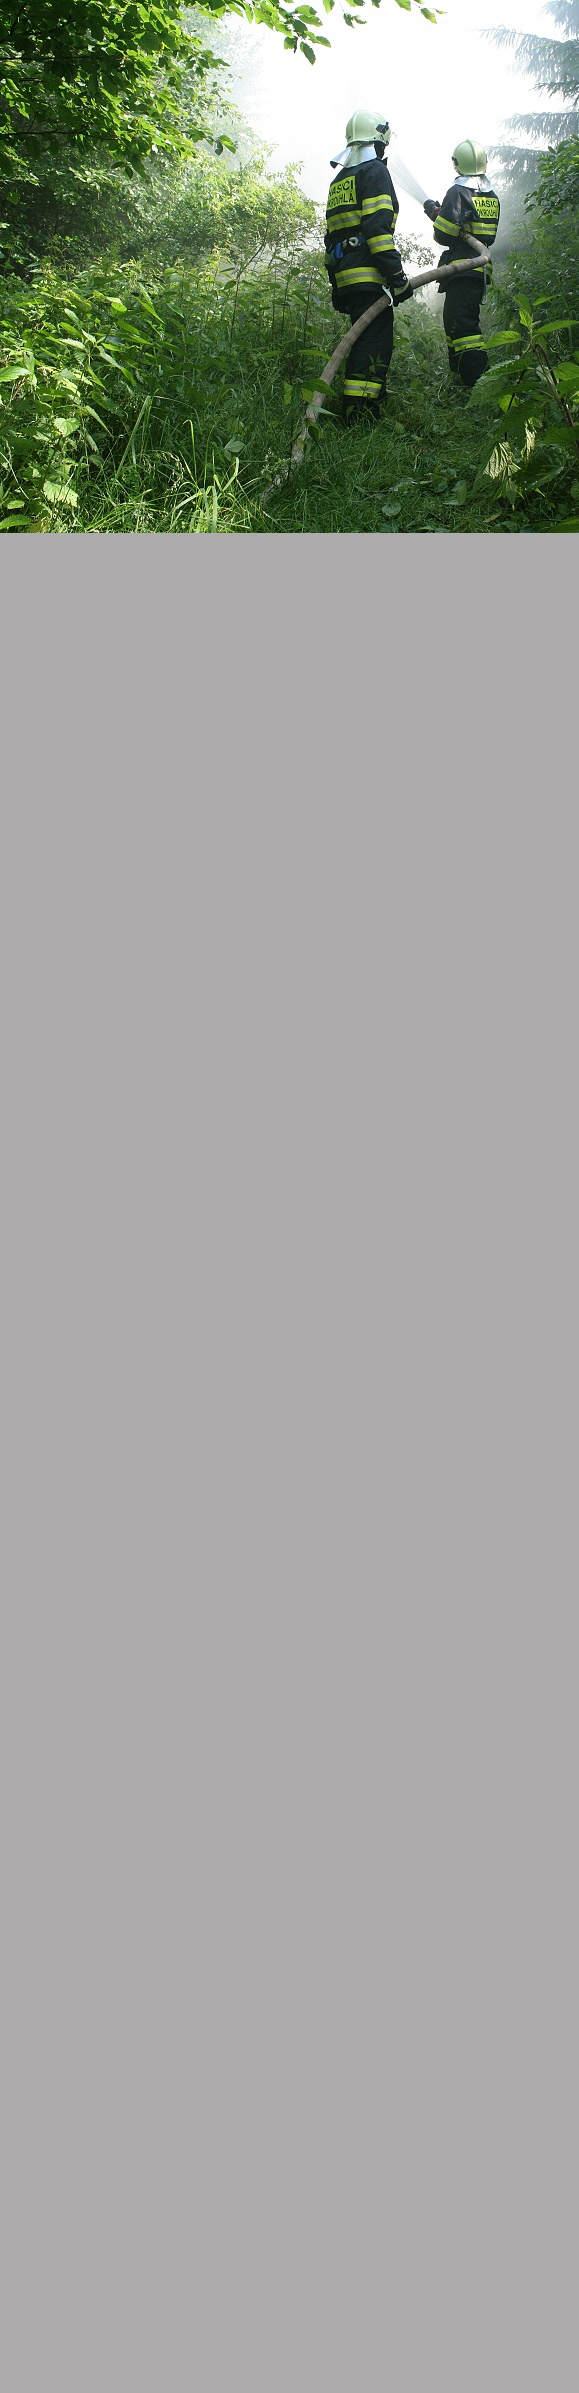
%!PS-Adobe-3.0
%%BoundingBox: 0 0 579 2393
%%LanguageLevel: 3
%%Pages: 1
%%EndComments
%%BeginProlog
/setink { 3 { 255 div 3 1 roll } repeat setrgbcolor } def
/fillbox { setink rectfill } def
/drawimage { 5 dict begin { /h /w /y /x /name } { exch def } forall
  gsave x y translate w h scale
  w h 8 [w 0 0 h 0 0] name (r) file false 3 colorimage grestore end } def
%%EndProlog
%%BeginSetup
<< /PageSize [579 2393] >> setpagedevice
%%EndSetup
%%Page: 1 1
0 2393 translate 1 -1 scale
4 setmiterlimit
0 0 579 2393 173 171 171 fillbox
(assets/img1.rgb) 0 0 579 533 drawimage
showpage
%%EOF
